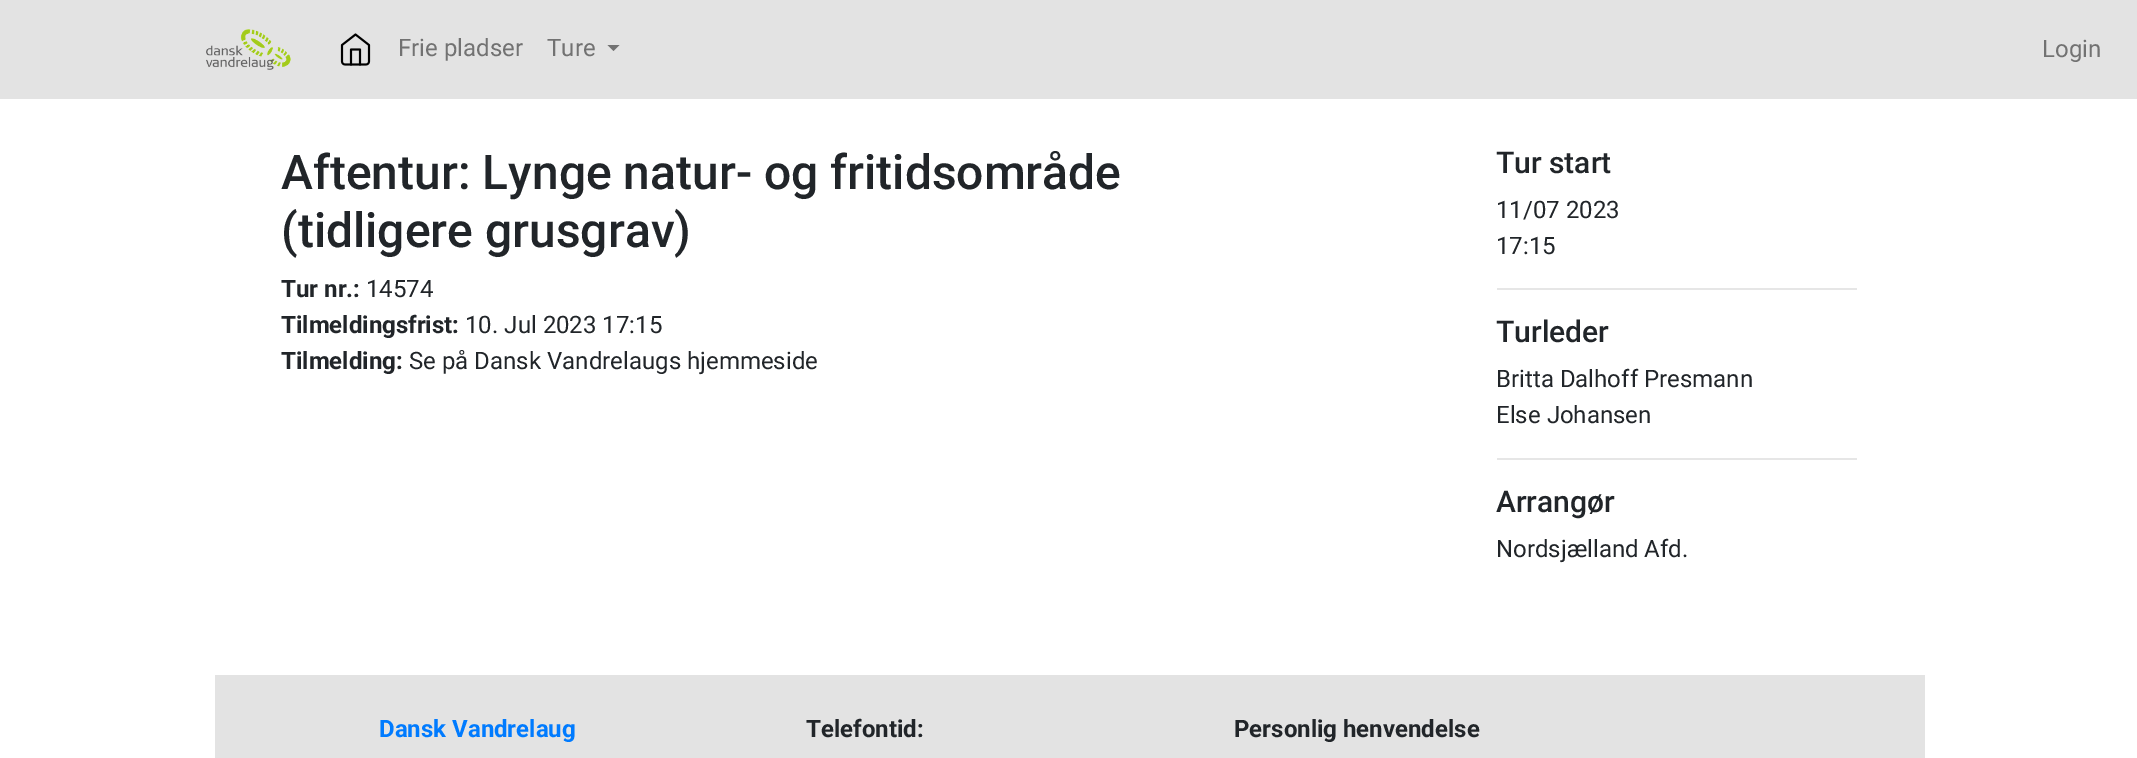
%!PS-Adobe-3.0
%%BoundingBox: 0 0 2137 758
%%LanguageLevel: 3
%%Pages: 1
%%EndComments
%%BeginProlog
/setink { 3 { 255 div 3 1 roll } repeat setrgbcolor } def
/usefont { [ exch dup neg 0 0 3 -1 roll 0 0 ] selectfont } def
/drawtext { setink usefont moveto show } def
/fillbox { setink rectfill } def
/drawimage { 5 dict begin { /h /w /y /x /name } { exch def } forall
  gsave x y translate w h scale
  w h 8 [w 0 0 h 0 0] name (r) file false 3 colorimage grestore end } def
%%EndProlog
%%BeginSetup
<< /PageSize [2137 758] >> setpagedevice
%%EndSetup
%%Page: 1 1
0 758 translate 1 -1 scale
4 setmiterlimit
0 0 2137 758 255 255 255 fillbox
0 0 2137 99 227 227 227 fillbox
(assets/img1.rgb) 206 29 85 41 drawimage
(assets/img2.rgb) 340 33 31 33 drawimage
(Frie pladser) 398 56 /Roboto-Regular 24 114 114 114 drawtext
(Ture) 547 56 /Roboto-Regular 24 114 114 114 drawtext
607.5 45 moveto 619.5 45 lineto 613.5 51 lineto closepath fill
(Login) 2042 57 /Roboto-Regular 24 114 114 114 drawtext
(Aftentur: Lynge natur- og fritidsområde) 281 189 /Roboto-Medium 48 33 37 41 drawtext
(\(tidligere grusgrav\)) 281 247 /Roboto-Medium 48 33 37 41 drawtext
(Tur nr.:) 281 297 /Roboto-Bold 24 33 37 41 drawtext
(14574) 366 297 /Roboto-Regular 24 33 37 41 drawtext
(Tilmeldingsfrist:) 281 333 /Roboto-Bold 24 33 37 41 drawtext
(10. Jul 2023 17:15) 465 333 /Roboto-Regular 24 33 37 41 drawtext
(Tilmelding:) 281 369 /Roboto-Bold 24 33 37 41 drawtext
(Se på Dansk Vandrelaugs hjemmeside) 409 369 /Roboto-Regular 24 33 37 41 drawtext
(Tur start) 1496 173 /Roboto-Medium 30 33 37 41 drawtext
(11/07 2023) 1496 218 /Roboto-Regular 24 33 37 41 drawtext
(17:15) 1496 254 /Roboto-Regular 24 33 37 41 drawtext
1497 288 360 2 230 230 230 fillbox
(Turleder) 1496 342 /Roboto-Medium 30 33 37 41 drawtext
(Britta Dalhoff Presmann) 1496 387 /Roboto-Regular 24 33 37 41 drawtext
(Else Johansen) 1496 423 /Roboto-Regular 24 33 37 41 drawtext
1497 458 360 2 230 230 230 fillbox
(Arrangør) 1496 512 /Roboto-Medium 30 33 37 41 drawtext
(Nordsjælland Afd.) 1496 557 /Roboto-Regular 24 33 37 41 drawtext
215 675 1710 83 227 227 227 fillbox
(Dansk Vandrelaug) 379 737 /Roboto-Bold 24 0 123 255 drawtext
(Telefontid:) 806 737 /Roboto-Bold 24 33 37 41 drawtext
(Personlig henvendelse) 1234 737 /Roboto-Bold 24 33 37 41 drawtext
showpage
%%EOF
